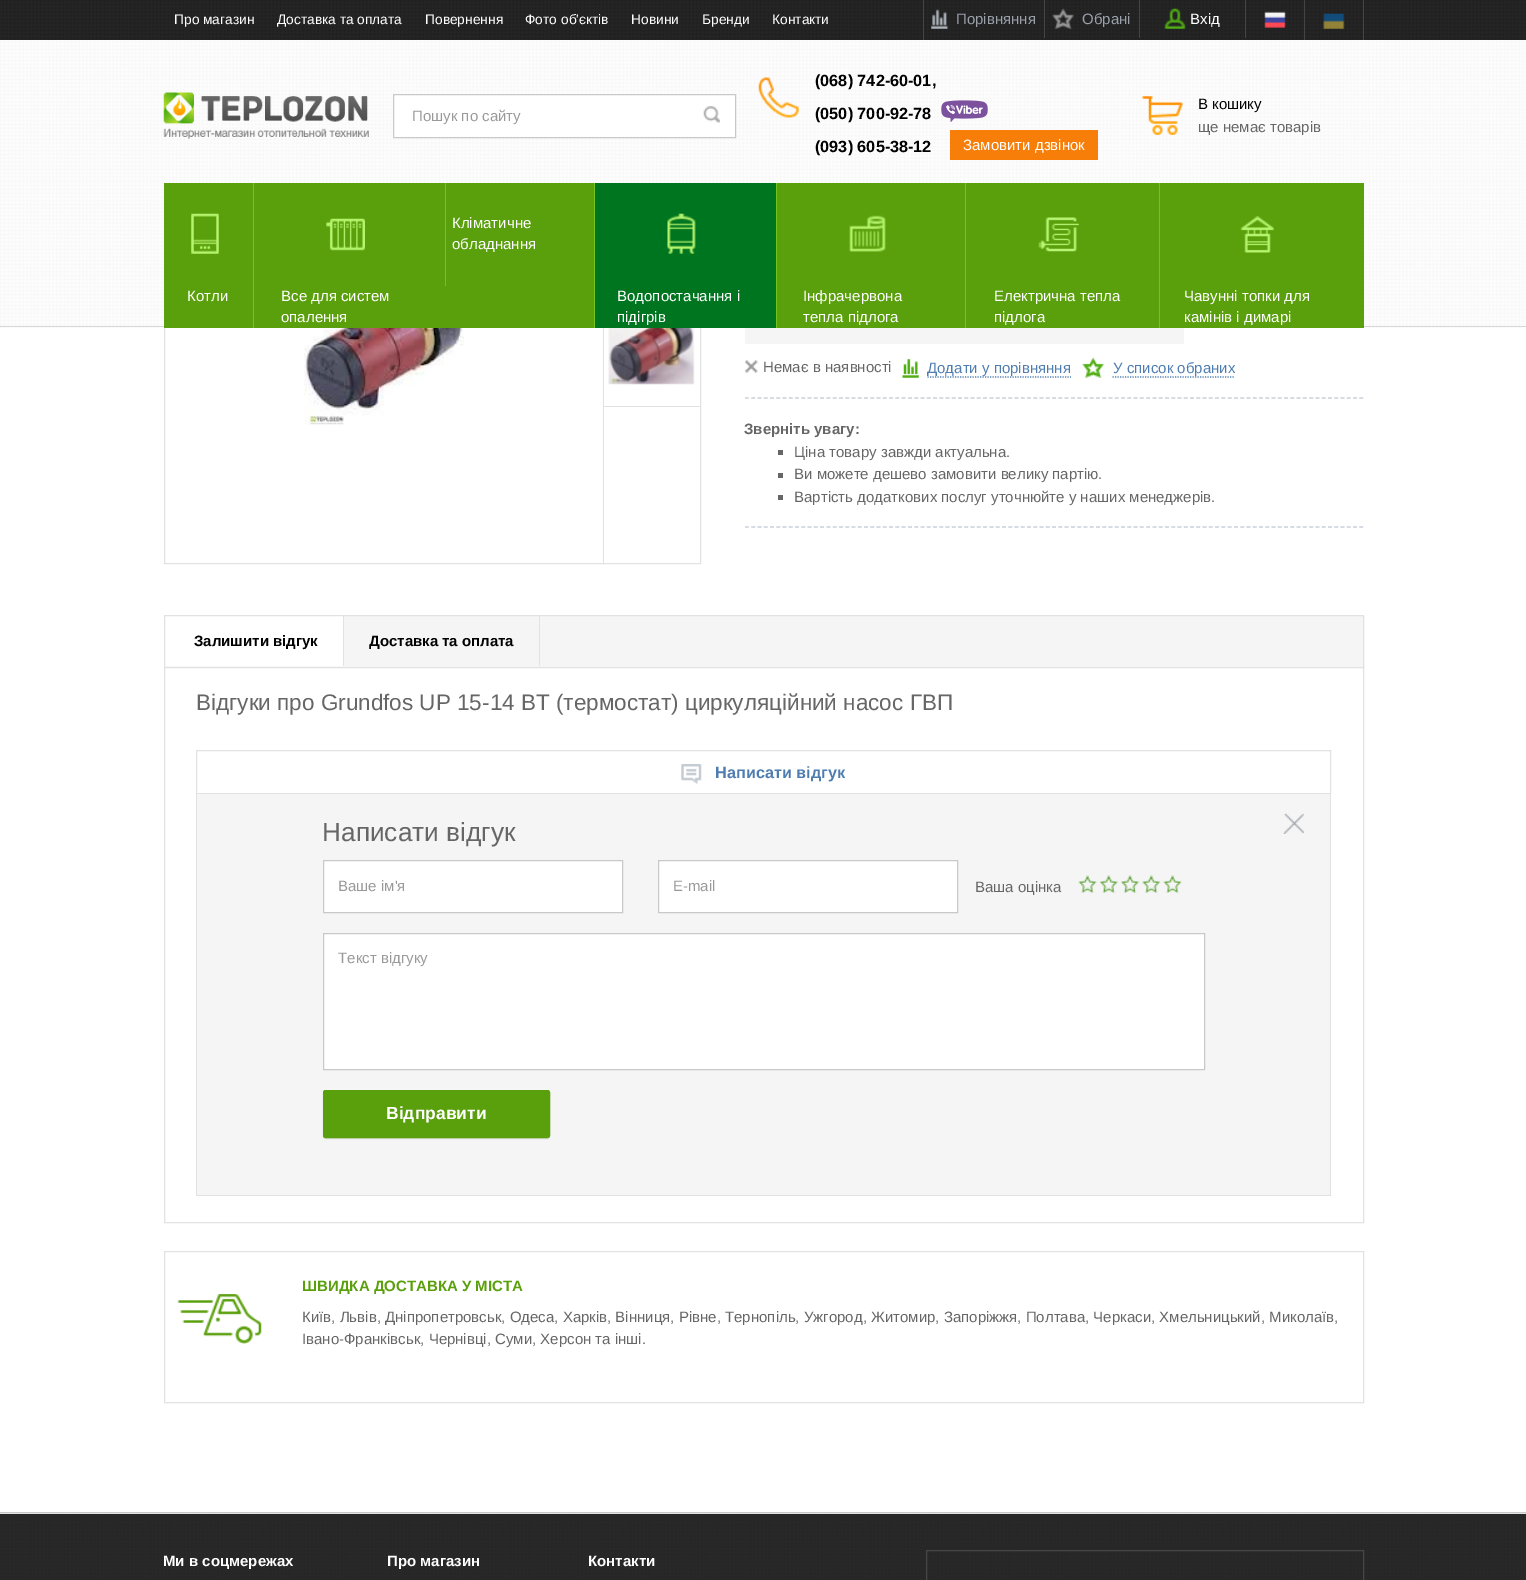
%!PS-Adobe-3.0
%%BoundingBox: 0 0 1526 1580
%%LanguageLevel: 3
%%Pages: 1
%%EndComments
%%BeginProlog
/setink { 3 { 255 div 3 1 roll } repeat setrgbcolor } def
/usefont { [ exch dup neg 0 0 3 -1 roll 0 0 ] selectfont } def
/drawtext { setink usefont moveto show } def
/fillbox { setink rectfill } def
/setalpha { dup .setfillconstantalpha .setstrokeconstantalpha } def
/rrect { 5 dict begin { /r /h /w /y /x } { exch def } forall
  x r add y moveto x w add y 2 copy h add r arct x w add y h add x 1 index r arct
  x y h add x y r arct x y 2 copy exch w add exch r arct closepath end } def
/softshadow { 12 dict begin { /a /b /q /h /w /y /x } { exch def } forall gsave /was 0 def
  9 -2 -9 { dup b mul 4 div /e exch def 1 sub .425 mul 2.718 exch exp 1 add a .99 .min exch div /now exch def
    1 1 now sub 1 was sub div sub setalpha /was now def
    w h .min e 2 mul add 0 gt { x e sub y e sub w e 2 mul add h e 2 mul add
      q e add b .6 mul add w h .min 2 div e add .min 0 .max rrect fill } if } for grestore end } def
/drawimage { 5 dict begin { /h /w /y /x /name } { exch def } forall
  gsave x y translate w h scale
  w h 8 [w 0 0 h 0 0] name (r) file false 3 colorimage grestore end } def
%%EndProlog
%%BeginSetup
<< /PageSize [1526 1580] /PageUsesTransparency true >> setpagedevice
%%EndSetup
%%Page: 1 1
0 .pushpdf14devicefilter
0 1580 translate 1 -1 scale
4 setmiterlimit
0 0 1526 1580 255 255 255 fillbox
226 226 226 setink
164.5 125.5 536 438 rectstroke
(assets/img1.rgb) 0 40 1526 288 drawimage
(assets/img2.rgb) 0 0 1526 40 drawimage
(Про магазин) 174 24 /LiberationSans-Regular 13.75 255 255 255 drawtext
(Доставка та оплата) 277 24 /LiberationSans-Regular 13.75 255 255 255 drawtext
(Повернення) 425 24 /LiberationSans-Regular 13.75 255 255 255 drawtext
(Фото об'єктів) 525 24 /LiberationSans-Regular 13.75 255 255 255 drawtext
(Новини) 631 24 /LiberationSans-Regular 13.75 255 255 255 drawtext
(Бренди) 702 24 /LiberationSans-Regular 13.75 255 255 255 drawtext
(Контакти) 772 24 /LiberationSans-Regular 13.75 255 255 255 drawtext
923 0 1 40 69 69 69 fillbox
1044 0 1 38 69 69 69 fillbox
(assets/img3.rgb) 931 9 18 20 drawimage
(Порівняння) 956 24 /LiberationSans-Regular 15 154 161 171 drawtext
0.3 setalpha
1139 0 1 38 147 147 147 fillbox
1 setalpha
(assets/img4.rgb) 1052 8 23 21 drawimage
(Обрані) 1082 24 /LiberationSans-Regular 15 154 161 171 drawtext
1245 0 1 38 69 69 69 fillbox
(assets/img5.rgb) 1164 8 22 21 drawimage
(Вхід) 1190 24 /LiberationSans-Regular 15 255 255 255 drawtext
(assets/img6.rgb) 1264 11 22 17 drawimage
0.3 setalpha
1363 0 1 40 147 147 147 fillbox
1304 0 1 40 147 147 147 fillbox
1 setalpha
(assets/img7.rgb) 1323 13 22 16 drawimage
(assets/img8.rgb) 163 92 206 47 drawimage
255 255 255 setink
393.5 94.5 moveto 735.5 94.5 lineto 735.5 137.5 lineto 393.5 137.5 lineto closepath gsave fill grestore
201 201 201 setink
stroke
(Пошук по сайту) 412 121 /LiberationSans-Regular 15 153 153 153 drawtext
(assets/img9.rgb) 703 106 17 17 drawimage
(assets/img10.rgb) 758 77 41 41 drawimage
(\(068\) 742-60-01,) 815 86 /LiberationSans-Bold 16.25 0 0 0 drawtext
(\(050\) 700-92-78) 815 119 /LiberationSans-Bold 16.25 0 0 0 drawtext
(assets/img11.rgb) 941 100 47 22 drawimage
(\(093\) 605-38-12) 815 152 /LiberationSans-Bold 16.25 0 0 0 drawtext
950 130 148 30 247 126 9 fillbox
(Замовити дзвінок) 963 150 /LiberationSans-Regular 15 255 255 255 drawtext
(assets/img12.rgb) 1142 96 41 39 drawimage
(В кошику) 1198 109 /LiberationSans-Regular 15 0 0 0 drawtext
(ще немає товарів) 1198 132 /LiberationSans-Regular 15 102 102 102 drawtext
(assets/img13.rgb) 0 182 1524 146 drawimage
0 326 1526 1 214 214 214 fillbox
164 183 1200 145 90 159 12 fillbox
445 183 1 103 117 196 28 fillbox
(Кліматичне) 452 228 /LiberationSans-Regular 15 255 255 255 drawtext
(обладнання) 452 249 /LiberationSans-Regular 15 255 255 255 drawtext
(assets/img14.rgb) 191 213 28 41 drawimage
(Котли) 187 301 /LiberationSans-Regular 15 255 255 255 drawtext
253 183 1 145 117 196 28 fillbox
(assets/img15.rgb) 326 218 39 33 drawimage
(Все для систем) 281 301 /LiberationSans-Regular 15 255 255 255 drawtext
(опалення) 281 322 /LiberationSans-Regular 15 255 255 255 drawtext
595 183 181 145 0 117 31 fillbox
594 183 1 145 117 196 28 fillbox
(assets/img16.rgb) 667 213 29 41 drawimage
(Водопостачання і) 617 301 /LiberationSans-Regular 15 255 255 255 drawtext
(підігрів) 617 322 /LiberationSans-Regular 15 255 255 255 drawtext
776 183 1 145 117 196 28 fillbox
(assets/img17.rgb) 849 215 37 37 drawimage
(Інфрачервона) 803 301 /LiberationSans-Regular 15 255 255 255 drawtext
(тепла підлога) 803 322 /LiberationSans-Regular 15 255 255 255 drawtext
965 183 1 145 117 196 28 fillbox
(assets/img18.rgb) 1038 217 41 35 drawimage
(Електрична тепла) 994 301 /LiberationSans-Regular 15 255 255 255 drawtext
(підлога) 994 322 /LiberationSans-Regular 15 255 255 255 drawtext
1159 183 1 145 117 196 28 fillbox
(assets/img19.rgb) 1240 216 34 37 drawimage
(Чавунні топки для) 1184 301 /LiberationSans-Regular 15 255 255 255 drawtext
(камінів і димарі) 1184 322 /LiberationSans-Regular 15 255 255 255 drawtext
(assets/img20.rgb) 304 328 160 98 drawimage
603 328 1 235 226 226 226 fillbox
(assets/img21.rgb) 608 328 87 57 drawimage
603 406 97 1 226 226 226 fillbox
200 207 217 setink
1.2 setlinewidth
[3.75 2.52] 0 setdash
745 398 moveto 1364 398 lineto stroke
745 328 439 16 245 245 245 fillbox
(assets/img22.rgb) 745 360 13 13 drawimage
(Немає в наявності) 763 372 /LiberationSans-Regular 15 102 102 102 drawtext
(assets/img23.rgb) 902 359 17 19 drawimage
79 125 176 setink
[1.25 1.25] 0 setdash
927.5 377 moveto 1071 377 lineto stroke
(Додати у порівняння) 927 373 /LiberationSans-Regular 15 79 125 176 drawtext
(assets/img24.rgb) 1082 357 22 21 drawimage
1112.5 377 moveto 1235 377 lineto stroke
(У список обраних) 1113 373 /LiberationSans-Regular 15 79 125 176 drawtext
200 207 217 setink
[3.75 2.52] 0 setdash
745 527 moveto 1364 527 lineto stroke
(Зверніть увагу:) 744 434 /LiberationSans-Bold 15 102 102 102 drawtext
778 450 5 5 102 102 102 fillbox
(Ціна товару завжди актуальна.) 794 457 /LiberationSans-Regular 15 102 102 102 drawtext
778 473 5 5 102 102 102 fillbox
(Ви можете дешево замовити велику партію.) 794 479 /LiberationSans-Regular 15 102 102 102 drawtext
778 495 5 5 102 102 102 fillbox
(Вартість додаткових послуг уточнюйте у наших менеджерів.) 794 502 /LiberationSans-Regular 15 102 102 102 drawtext
226 226 226 setink
1 setlinewidth
[] 0 setdash
164.5 665.5 1199 557 rectstroke
343 616 1020 51 245 245 245 fillbox
226 226 226 setink
164.5 615.5 1199 52 rectstroke
165 665 178 1 255 255 255 fillbox
343 616 1 50 226 226 226 fillbox
(Залишити відгук) 194 646 /LiberationSans-Bold 15 0 0 0 drawtext
539 616 1 50 226 226 226 fillbox
(Доставка та оплата) 369 646 /LiberationSans-Bold 15 0 0 0 drawtext
(Відгуки про Grundfos UP 15-14 BT \(термостат\) циркуляційний насос ГВП) 196 710 /LiberationSans-Regular 22.5 102 102 102 drawtext
226 226 226 setink
196.5 750.5 1134 43 rectstroke
(assets/img25.rgb) 681 764 21 20 drawimage
(Написати відгук) 715 778 /LiberationSans-Bold 16.25 79 125 176 drawtext
197 794 1133 401 245 245 245 fillbox
1330 794 1 402 226 226 226 fillbox
196 1195 1135 1 226 226 226 fillbox
196 794 1 402 226 226 226 fillbox
(Написати відгук) 322 841 /LiberationSans-Regular 26.25 102 102 102 drawtext
255 255 255 setink
323.5 860.5 moveto 622.5 860.5 lineto 622.5 912.5 lineto 323.5 912.5 lineto closepath gsave fill grestore
201 201 201 setink
stroke
(Ваше ім'я) 338 891 /LiberationSans-Regular 15 153 153 153 drawtext
255 255 255 setink
658.5 860.5 moveto 957.5 860.5 lineto 957.5 912.5 lineto 658.5 912.5 lineto closepath gsave fill grestore
201 201 201 setink
stroke
(E-mail) 673 891 /LiberationSans-Regular 15 153 153 153 drawtext
(Ваша оцінка) 975 892 /LiberationSans-Regular 15 102 102 102 drawtext
(assets/img26.rgb) 1078 875 104 18 drawimage
255 255 255 setink
323.5 933.5 moveto 1204.5 933.5 lineto 1204.5 1069.5 lineto 323.5 1069.5 lineto closepath gsave fill grestore
201 201 201 setink
stroke
(Текст відгуку) 338 963 /LiberationSans-Regular 15 153 153 153 drawtext
0 0 0 setink
323 1091 227 48 2.5 0.5 0.1 softshadow
90 159 12 setink
323.5 1090.5 226 47 2 rrect gsave fill grestore
stroke
(Відправити) 386 1119 /LiberationSans-Bold 17.5 255 255 255 drawtext
(assets/img27.rgb) 1283 813 22 21 drawimage
226 226 226 setink
164.5 1251.5 1199 151 rectstroke
(assets/img28.rgb) 177 1294 85 50 drawimage
(ШВИДКА ДОСТАВКА У МІСТА) 302 1291 /LiberationSans-Bold 15 90 159 12 drawtext
(Київ, Львів, Дніпропетровськ, Одеса, Харків, Вінниця, Рівне, Тернопіль, Ужгород, Житомир, Запоріжжя, Полтава, Черкаси, Хмельницький, Миколаїв,) 302 1322 /LiberationSans-Regular 15 102 102 102 drawtext
(Івано-Франківськ, Чернівці, Суми, Херсон та інші.) 302 1344 /LiberationSans-Regular 15 102 102 102 drawtext
(assets/img29.rgb) 0 1512 1526 68 drawimage
0 1513 1526 1 226 226 226 fillbox
(Ми в соцмережах) 163 1566 /LiberationSans-Bold 15 255 255 255 drawtext
(Про магазин) 387 1566 /LiberationSans-Bold 15 255 255 255 drawtext
(Контакти) 588 1566 /LiberationSans-Bold 15 255 255 255 drawtext
71 71 71 setink
926.5 1550.5 437 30 rectstroke
.poppdf14devicefilter showpage
%%EOF
